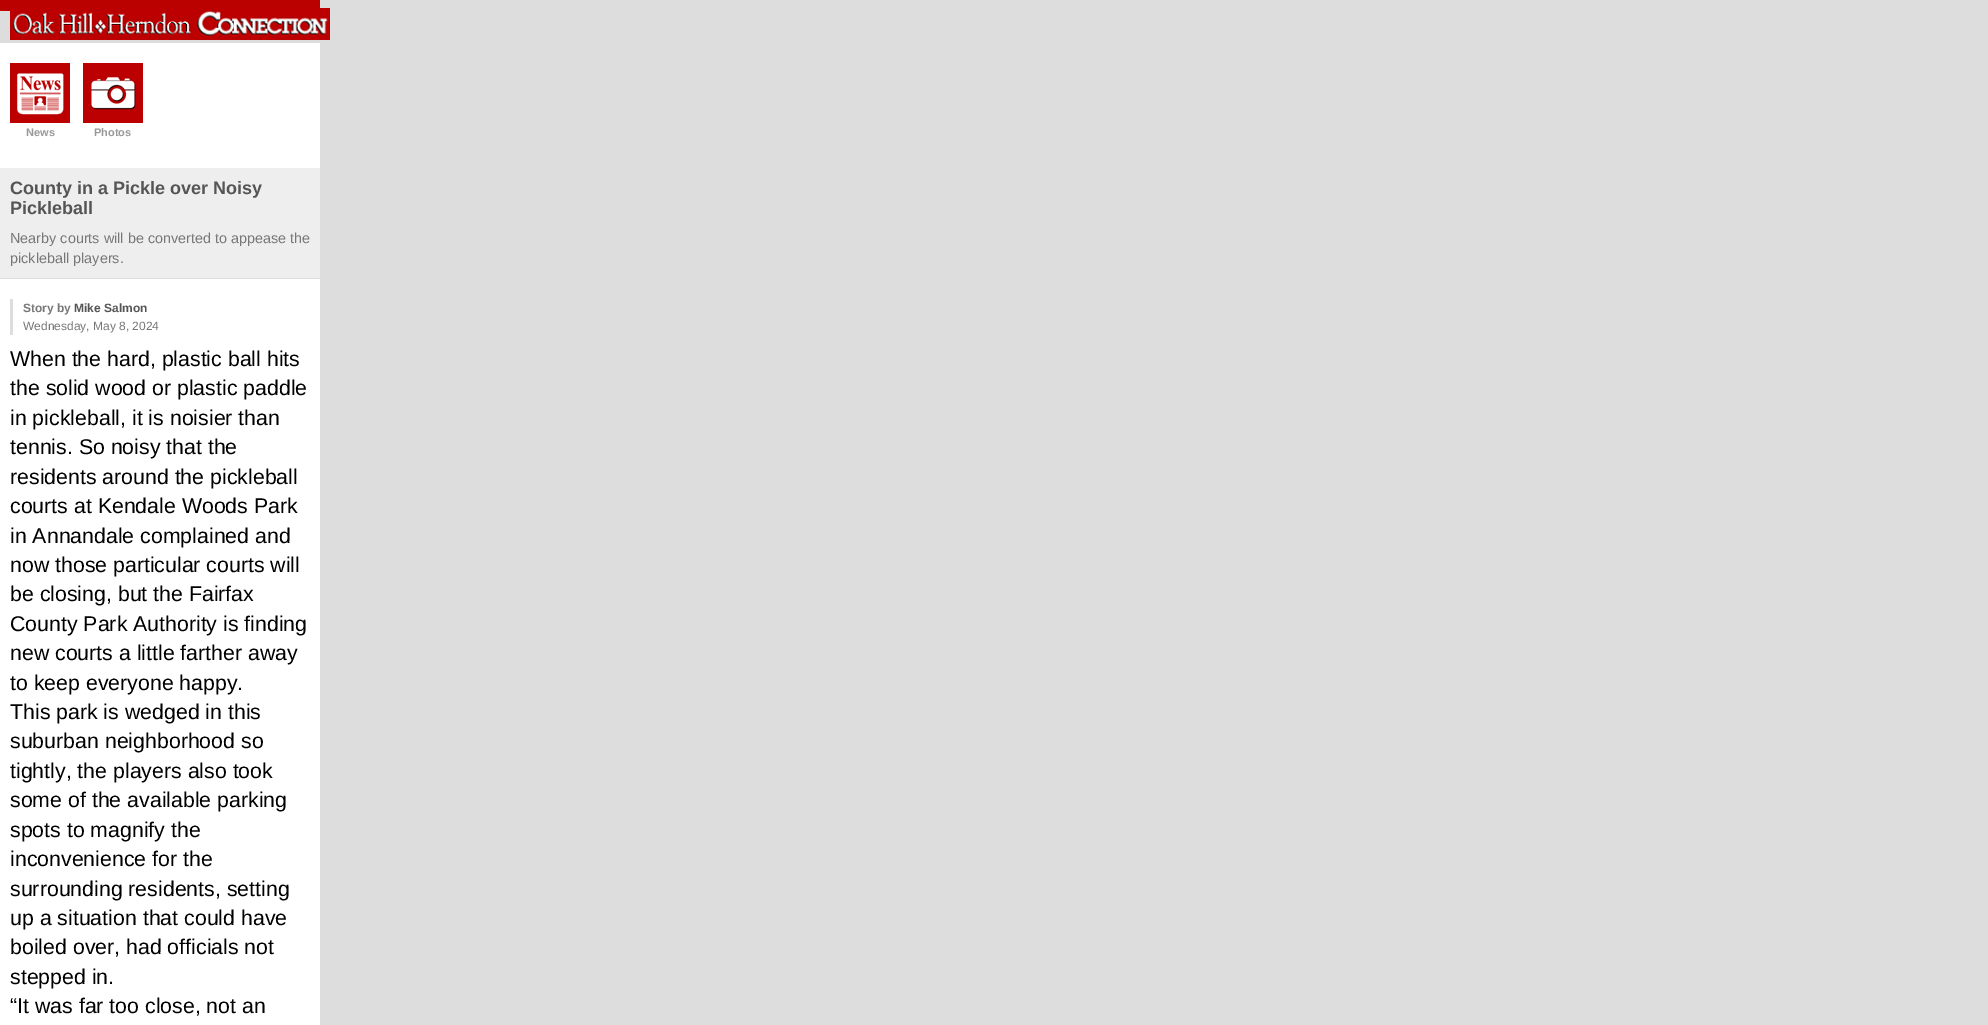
%!PS-Adobe-3.0
%%BoundingBox: 0 0 1988 1025
%%LanguageLevel: 3
%%Pages: 1
%%EndComments
%%BeginProlog
/setink { 3 { 255 div 3 1 roll } repeat setrgbcolor } def
/usefont { [ exch dup neg 0 0 3 -1 roll 0 0 ] selectfont } def
/drawtext { setink usefont moveto show } def
/fillbox { setink rectfill } def
/drawimage { 5 dict begin { /h /w /y /x /name } { exch def } forall
  gsave x y translate w h scale
  w h 8 [w 0 0 h 0 0] name (r) file false 3 colorimage grestore end } def
%%EndProlog
%%BeginSetup
<< /PageSize [1988 1025] >> setpagedevice
%%EndSetup
%%Page: 1 1
0 1025 translate 1 -1 scale
4 setmiterlimit
0 0 1988 1025 221 221 221 fillbox
0 0 320 11 187 0 0 fillbox
(assets/img1.rgb) 10 8 320 32 drawimage
0 43 320 125 255 255 255 fillbox
(assets/img2.rgb) 10 63 60 60 drawimage
(News) 26 136 /LiberationSans-Bold 11 153 153 153 drawtext
(assets/img3.rgb) 83 63 60 60 drawimage
(Photos) 94 136 /LiberationSans-Bold 11 153 153 153 drawtext
0 279 320 746 255 255 255 fillbox
0 168 320 110 238 238 238 fillbox
(County in a Pickle over Noisy) 10 194 /LiberationSans-Bold 18 85 85 85 drawtext
(Pickleball) 10 214 /LiberationSans-Bold 18 85 85 85 drawtext
(Nearby courts will be converted to appease the) 10 243 /LiberationSans-Regular 14.4 119 119 119 drawtext
(pickleball players.) 10 263 /LiberationSans-Regular 14.4 119 119 119 drawtext
10 299 3 36 221 221 221 fillbox
(Story by) 23 312 /LiberationSans-Bold 12 119 119 119 drawtext
(Mike Salmon) 74 312 /LiberationSans-Bold 12 85 85 85 drawtext
(Wednesday, May 8, 2024) 23 330 /LiberationSans-Regular 12 119 119 119 drawtext
(When the hard, plastic ball hits) 10 366 /LiberationSans-Regular 21.3 0 0 0 drawtext
(the solid wood or plastic paddle) 10 395 /LiberationSans-Regular 21.3 0 0 0 drawtext
(in pickleball, it is noisier than) 10 425 /LiberationSans-Regular 21.3 0 0 0 drawtext
(tennis. So noisy that the) 10 454 /LiberationSans-Regular 21.3 0 0 0 drawtext
(residents around the pickleball) 10 484 /LiberationSans-Regular 21.3 0 0 0 drawtext
(courts at Kendale Woods Park) 10 513 /LiberationSans-Regular 21.3 0 0 0 drawtext
(in Annandale complained and) 10 543 /LiberationSans-Regular 21.3 0 0 0 drawtext
(now those particular courts will) 10 572 /LiberationSans-Regular 21.3 0 0 0 drawtext
(be closing, but the Fairfax) 10 601 /LiberationSans-Regular 21.3 0 0 0 drawtext
(County Park Authority is finding) 10 631 /LiberationSans-Regular 21.3 0 0 0 drawtext
(new courts a little farther away) 10 660 /LiberationSans-Regular 21.3 0 0 0 drawtext
(to keep everyone happy.) 10 690 /LiberationSans-Regular 21.3 0 0 0 drawtext
(This park is wedged in this) 10 719 /LiberationSans-Regular 21.3 0 0 0 drawtext
(suburban neighborhood so) 10 748 /LiberationSans-Regular 21.3 0 0 0 drawtext
(tightly, the players also took) 10 778 /LiberationSans-Regular 21.3 0 0 0 drawtext
(some of the available parking) 10 807 /LiberationSans-Regular 21.3 0 0 0 drawtext
(spots to magnify the) 10 837 /LiberationSans-Regular 21.3 0 0 0 drawtext
(inconvenience for the) 10 866 /LiberationSans-Regular 21.3 0 0 0 drawtext
(surrounding residents, setting) 10 896 /LiberationSans-Regular 21.3 0 0 0 drawtext
(up a situation that could have) 10 925 /LiberationSans-Regular 21.3 0 0 0 drawtext
(boiled over, had officials not) 10 954 /LiberationSans-Regular 21.3 0 0 0 drawtext
(stepped in.) 10 984 /LiberationSans-Regular 21.3 0 0 0 drawtext
(“It was far too close, not an) 10 1013 /LiberationSans-Regular 21.3 0 0 0 drawtext
showpage
%%EOF
